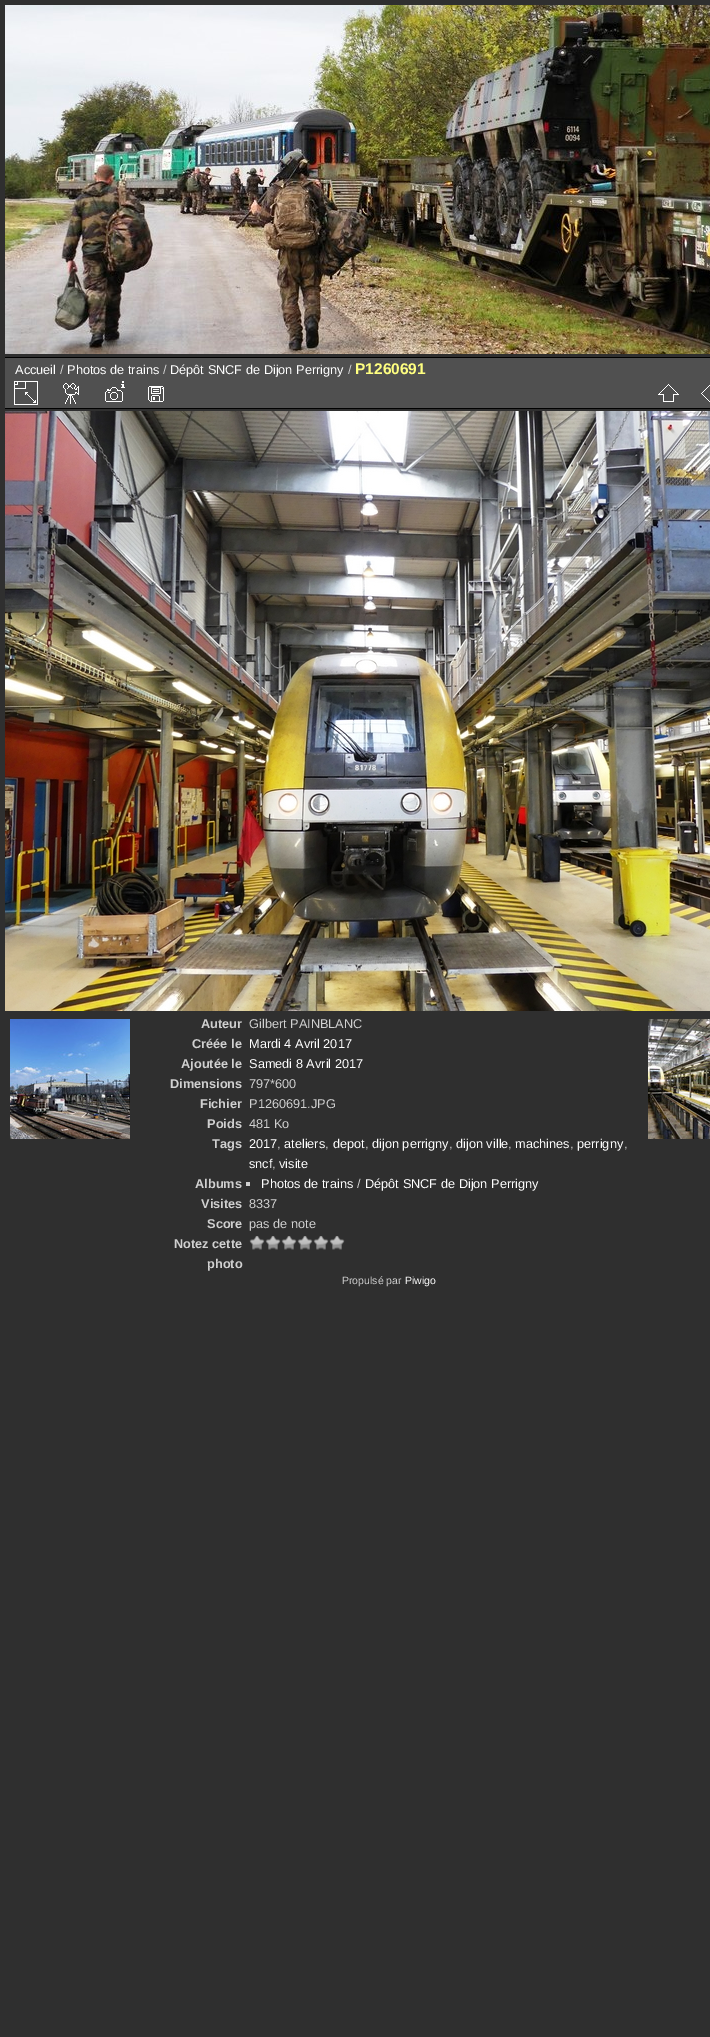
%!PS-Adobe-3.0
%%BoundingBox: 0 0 710 2037
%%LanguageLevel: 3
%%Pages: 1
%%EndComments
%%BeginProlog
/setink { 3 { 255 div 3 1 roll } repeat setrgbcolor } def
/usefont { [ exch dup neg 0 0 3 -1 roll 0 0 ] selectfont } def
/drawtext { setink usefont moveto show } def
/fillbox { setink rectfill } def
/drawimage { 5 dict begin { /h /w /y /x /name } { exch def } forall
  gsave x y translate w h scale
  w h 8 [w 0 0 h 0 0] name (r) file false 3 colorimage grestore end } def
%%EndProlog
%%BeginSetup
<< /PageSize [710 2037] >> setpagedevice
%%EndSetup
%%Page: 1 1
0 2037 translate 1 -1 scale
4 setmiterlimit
0 0 710 2037 47 47 47 fillbox
(assets/img1.rgb) 5 5 705 349 drawimage
5 358 705 50 80 80 80 fillbox
5 408 705 1 0 0 0 fillbox
(assets/img2.rgb) 14 381 24 24 drawimage
(assets/img3.rgb) 63 383 16 21 drawimage
(assets/img4.rgb) 105 381 20 21 drawimage
(assets/img5.rgb) 148 386 16 16 drawimage
(assets/img6.rgb) 658 384 21 18 drawimage
(assets/img7.rgb) 701 385 9 17 drawimage
5 357 705 1 0 0 0 fillbox
(Accueil) 15 374 /LiberationSans-Regular 12.75 255 255 255 drawtext
(/) 60 374 /LiberationSans-Regular 12.75 208 208 208 drawtext
(Photos de trains) 67 374 /LiberationSans-Regular 12.75 255 255 255 drawtext
(/) 163 374 /LiberationSans-Regular 12.75 208 208 208 drawtext
(Dépôt SNCF de Dijon Perrigny) 170 374 /LiberationSans-Regular 12.75 255 255 255 drawtext
(/) 348 374 /LiberationSans-Regular 12.75 208 208 208 drawtext
(P1260691) 355 374 /LiberationSans-Bold 15.5 255 255 128 drawtext
(assets/img8.rgb) 5 411 705 600 drawimage
(Auteur) 201 1028 /LiberationSans-Bold 12.75 208 208 208 drawtext
(Gilbert PAINBLANC) 249 1028 /LiberationSans-Regular 12.75 208 208 208 drawtext
(Créée le) 192 1048 /LiberationSans-Bold 12.75 208 208 208 drawtext
(Mardi 4 Avril 2017) 249 1048 /LiberationSans-Regular 12.75 255 255 255 drawtext
(Ajoutée le) 181 1068 /LiberationSans-Bold 12.75 208 208 208 drawtext
(Samedi 8 Avril 2017) 249 1068 /LiberationSans-Regular 12.75 255 255 255 drawtext
(Dimensions) 170 1088 /LiberationSans-Bold 12.75 208 208 208 drawtext
(797*600) 249 1088 /LiberationSans-Regular 12.75 208 208 208 drawtext
(Fichier) 200 1108 /LiberationSans-Bold 12.75 208 208 208 drawtext
(P1260691.JPG) 249 1108 /LiberationSans-Regular 12.75 208 208 208 drawtext
(Poids) 207 1128 /LiberationSans-Bold 12.75 208 208 208 drawtext
(481 Ko) 249 1128 /LiberationSans-Regular 12.75 208 208 208 drawtext
(Tags) 212 1148 /LiberationSans-Bold 12.75 208 208 208 drawtext
(2017) 249 1148 /LiberationSans-Regular 12.75 255 255 255 drawtext
(,) 277 1148 /LiberationSans-Regular 12.75 208 208 208 drawtext
(ateliers) 284 1148 /LiberationSans-Regular 12.75 255 255 255 drawtext
(,) 325 1148 /LiberationSans-Regular 12.75 208 208 208 drawtext
(depot) 333 1148 /LiberationSans-Regular 12.75 255 255 255 drawtext
(,) 365 1148 /LiberationSans-Regular 12.75 208 208 208 drawtext
(dijon perrigny) 372 1148 /LiberationSans-Regular 12.75 255 255 255 drawtext
(,) 449 1148 /LiberationSans-Regular 12.75 208 208 208 drawtext
(dijon ville) 456 1148 /LiberationSans-Regular 12.75 255 255 255 drawtext
(,) 508 1148 /LiberationSans-Regular 12.75 208 208 208 drawtext
(machines) 515 1148 /LiberationSans-Regular 12.75 255 255 255 drawtext
(,) 570 1148 /LiberationSans-Regular 12.75 208 208 208 drawtext
(perrigny) 577 1148 /LiberationSans-Regular 12.75 255 255 255 drawtext
(,) 624 1148 /LiberationSans-Regular 12.75 208 208 208 drawtext
(sncf) 249 1168 /LiberationSans-Regular 12.75 255 255 255 drawtext
(,) 272 1168 /LiberationSans-Regular 12.75 208 208 208 drawtext
(visite) 279 1168 /LiberationSans-Regular 12.75 255 255 255 drawtext
(Albums) 195 1188 /LiberationSans-Bold 12.75 208 208 208 drawtext
246 1182 4 4 208 208 208 fillbox
(Photos de trains) 261 1188 /LiberationSans-Regular 12.75 255 255 255 drawtext
(/) 357 1188 /LiberationSans-Regular 12.75 208 208 208 drawtext
(Dépôt SNCF de Dijon Perrigny) 365 1188 /LiberationSans-Regular 12.75 255 255 255 drawtext
(Visites) 201 1208 /LiberationSans-Bold 12.75 208 208 208 drawtext
(8337) 249 1208 /LiberationSans-Regular 12.75 208 208 208 drawtext
(Score) 207 1228 /LiberationSans-Bold 12.75 208 208 208 drawtext
(pas de note) 249 1228 /LiberationSans-Regular 12.75 208 208 208 drawtext
(Notez cette) 174 1248 /LiberationSans-Bold 12.75 208 208 208 drawtext
(photo) 207 1268 /LiberationSans-Bold 12.75 208 208 208 drawtext
(assets/img9.rgb) 249 1236 16 14 drawimage
(assets/img9.rgb) 265 1236 16 14 drawimage
(assets/img9.rgb) 281 1236 16 14 drawimage
(assets/img9.rgb) 297 1236 16 14 drawimage
(assets/img9.rgb) 313 1236 16 14 drawimage
(assets/img9.rgb) 329 1236 16 14 drawimage
(assets/img10.rgb) 10 1019 120 120 drawimage
(assets/img11.rgb) 648 1019 62 120 drawimage
(Propulsé par) 342 1284 /LiberationSans-Regular 10.5 208 208 208 drawtext
(Piwigo) 405 1284 /LiberationSans-Regular 10.5 255 255 255 drawtext
showpage
%%EOF
